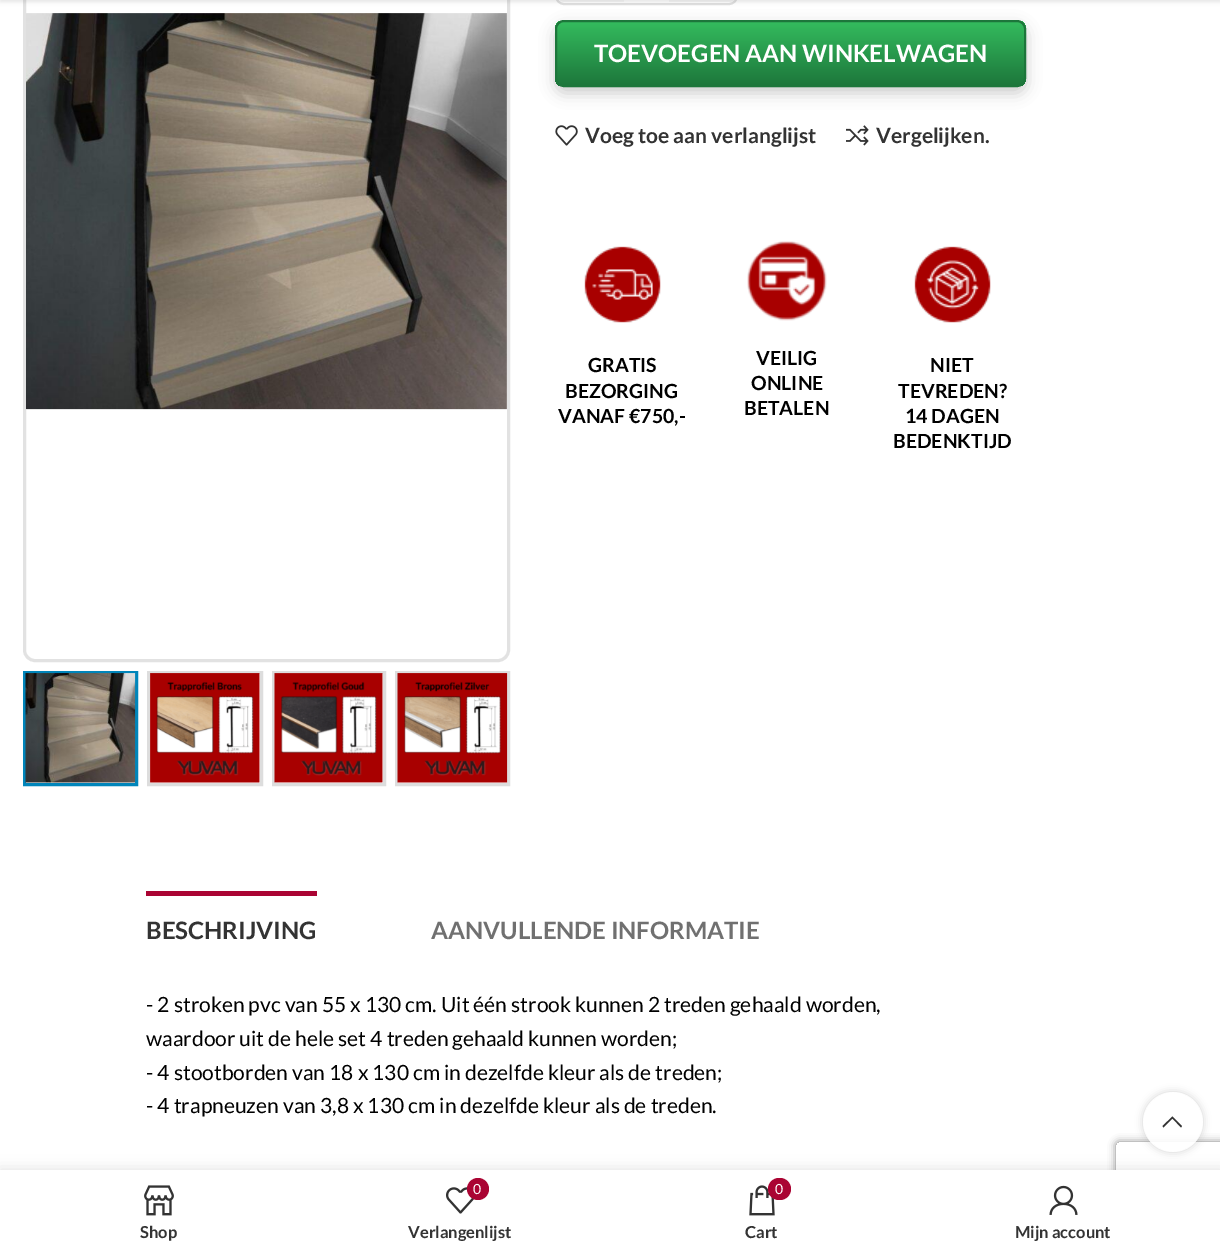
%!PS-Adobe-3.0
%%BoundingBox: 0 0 1220 1252
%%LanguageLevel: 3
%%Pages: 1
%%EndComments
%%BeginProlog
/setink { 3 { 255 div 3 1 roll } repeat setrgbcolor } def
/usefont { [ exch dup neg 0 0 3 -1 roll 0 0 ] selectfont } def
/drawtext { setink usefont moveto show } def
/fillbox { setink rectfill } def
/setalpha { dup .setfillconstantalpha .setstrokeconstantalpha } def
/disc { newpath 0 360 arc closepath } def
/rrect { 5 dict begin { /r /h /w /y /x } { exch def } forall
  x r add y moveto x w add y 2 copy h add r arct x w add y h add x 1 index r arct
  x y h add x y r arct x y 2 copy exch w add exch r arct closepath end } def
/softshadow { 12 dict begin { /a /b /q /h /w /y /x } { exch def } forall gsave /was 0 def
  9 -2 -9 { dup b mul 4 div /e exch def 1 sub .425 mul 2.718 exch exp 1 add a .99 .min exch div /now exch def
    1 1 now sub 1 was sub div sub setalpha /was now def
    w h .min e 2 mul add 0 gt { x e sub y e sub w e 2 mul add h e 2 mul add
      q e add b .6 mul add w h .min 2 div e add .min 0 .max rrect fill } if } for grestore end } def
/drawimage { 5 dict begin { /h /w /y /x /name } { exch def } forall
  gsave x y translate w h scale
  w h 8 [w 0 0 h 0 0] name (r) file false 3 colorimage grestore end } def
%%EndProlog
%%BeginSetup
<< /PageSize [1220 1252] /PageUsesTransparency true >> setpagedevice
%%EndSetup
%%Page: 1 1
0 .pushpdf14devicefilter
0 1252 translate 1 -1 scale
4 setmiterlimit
0 0 1220 1252 255 255 255 fillbox
226 226 226 setink
3 setlinewidth
24.5 -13.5 484 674 10.5 rrect stroke
224 224 224 setink
2 setlinewidth
556 -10 181 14 8 rrect stroke
247 247 247 setink
565 -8 moveto 624 -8 lineto 624 2 lineto 565 2 lineto 560.5 2 557 -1.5 557 -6 curveto 557 0 lineto 557 -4.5 560.5 -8 565 -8 curveto closepath fill
669 -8 moveto 729 -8 lineto 733.5 -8 737 -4.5 737 0 curveto 737 -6 lineto 737 -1.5 733.5 2 729 2 curveto 669 2 lineto closepath fill
0 0 0 setink
0 -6 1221 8 0 2 0.1 softshadow
(assets/img1.rgb) 26 13 481 397 drawimage
0 133 186 setink
3 setlinewidth
24.5 672.5 112 112 rectstroke
(assets/img2.rgb) 25 673 111 110 drawimage
221 221 221 setink
148.5 672.5 113 112 rectstroke
(assets/img3.rgb) 150 673 110 110 drawimage
273.5 672.5 111 112 rectstroke
(assets/img4.rgb) 274 673 109 110 drawimage
396.5 672.5 112 112 rectstroke
(assets/img5.rgb) 397 673 111 110 drawimage
0 0 0 setink
555 26 471 67 9 7.5 0.2 softshadow
gsave
555 20 471 67 9 rrect clip newpath
gsave 555 21 moveto 1026 21 lineto 1026 86 lineto 555 86 lineto closepath clip newpath
<< /ShadingType 2 /ColorSpace /DeviceRGB /Coords [791 21 791 86] /Extend [true true] /Function << /FunctionType 2 /Domain [0 1] /C0 [0.204 0.737 0.369] /C1 [0.114 0.463 0.231] /N 1 >> >> shfill grestore
grestore
29 118 59 setink
2 setlinewidth
556 21 469 65 8 rrect stroke
(TOEVOEGEN AAN WINKELWAGEN) 594 62 /Lato-Bold 24 255 255 255 drawtext
(assets/img6.rgb) 555 125 23 21 drawimage
(Voeg toe aan verlanglijst) 585 143 /Lato-Bold 21 51 51 51 drawtext
(assets/img7.rgb) 846 125 23 21 drawimage
(Vergelijken.) 876 143 /Lato-Bold 21 51 51 51 drawtext
(assets/img8.rgb) 584 246 77 77 drawimage
(GRATIS) 588 372 /Lato-Bold 19.5 0 0 0 drawtext
(BEZORGING) 565 398 /Lato-Bold 19.5 0 0 0 drawtext
(VANAF €750,-) 558 423 /Lato-Bold 19.5 0 0 0 drawtext
(assets/img9.rgb) 747 241 80 80 drawimage
(VEILIG) 756 365 /Lato-Bold 19.5 0 0 0 drawtext
(ONLINE) 751 390 /Lato-Bold 19.5 0 0 0 drawtext
(BETALEN) 744 415 /Lato-Bold 19.5 0 0 0 drawtext
(assets/img10.rgb) 914 246 77 77 drawimage
(NIET) 930 372 /Lato-Bold 19.5 0 0 0 drawtext
(TEVREDEN?) 898 398 /Lato-Bold 19.5 0 0 0 drawtext
(14 DAGEN) 905 423 /Lato-Bold 19.5 0 0 0 drawtext
(BEDENKTIJD) 893 448 /Lato-Bold 19.5 0 0 0 drawtext
146 891 171 5 170 4 51 fillbox
(BESCHRIJVING) 146 939 /Lato-Bold 24 51 51 51 drawtext
(AANVULLENDE INFORMATIE) 431 939 /Lato-Bold 24 112 112 112 drawtext
(- 2 stroken pvc van 55 x 130 cm. Uit één strook kunnen 2 treden gehaald worden,) 146 1012 /Lato-Regular 21 0 0 0 drawtext
(waardoor uit de hele set 4 treden gehaald kunnen worden;) 146 1046 /Lato-Regular 21 0 0 0 drawtext
(- 4 stootborden van 18 x 130 cm in dezelfde kleur als de treden;) 146 1080 /Lato-Regular 21 0 0 0 drawtext
(- 4 trapneuzen van 3,8 x 130 cm in dezelfde kleur als de treden.) 146 1113 /Lato-Regular 21 0 0 0 drawtext
gsave
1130 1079 moveto 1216 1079 lineto 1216 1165 lineto 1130 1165 lineto closepath 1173 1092 moveto 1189.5 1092 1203 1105.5 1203 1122 curveto 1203 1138.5 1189.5 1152 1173 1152 curveto 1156.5 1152 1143 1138.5 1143 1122 curveto 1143 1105.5 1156.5 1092 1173 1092 curveto closepath eoclip newpath
1143 1092 60 60 30 4 0.17 softshadow
grestore
gsave
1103 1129 moveto 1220 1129 lineto 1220 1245 lineto 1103 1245 lineto closepath 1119 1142 moveto 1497 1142 lineto 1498.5 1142 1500 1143.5 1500 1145 curveto 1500 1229 lineto 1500 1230.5 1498.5 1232 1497 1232 curveto 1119 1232 lineto 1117.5 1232 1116 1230.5 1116 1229 curveto 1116 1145 lineto 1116 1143.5 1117.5 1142 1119 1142 curveto closepath eoclip newpath
128 128 128 setink
1116 1142 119 90 3 4 1 softshadow
grestore
0.9 setalpha
255 255 255 setink
1173 1122 30 disc fill
1 setalpha
51 51 51 setink
1181 1127.5 moveto 1182 1126 lineto 1172.5 1116.5 lineto 1162.5 1126 lineto 1163.5 1127.5 lineto 1172.5 1118.5 lineto closepath fill
0 0 0 setink
0 1170 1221 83 0 7 0.12 softshadow
0 1170 1220 82 255 255 255 fillbox
(assets/img11.rgb) 144 1185 30 31 drawimage
(Shop) 140 1238 /Lato-Bold 16.5 51 51 51 drawtext
(assets/img12.rgb) 446 1187 28 27 drawimage
170 4 51 setink
478 1189 11 disc fill
(0) 473 1194 /Lato-Regular 14 255 255 255 drawtext
(Verlangenlijst) 408 1238 /Lato-Bold 16.5 51 51 51 drawtext
(assets/img13.rgb) 749 1185 26 31 drawimage
170 4 51 setink
768 1178 23 22 11 rrect fill
(0) 775 1194 /Lato-Regular 14 255 255 255 drawtext
(Cart) 745 1238 /Lato-Bold 16.5 51 51 51 drawtext
(assets/img14.rgb) 1049 1185 29 30 drawimage
(Mijn account) 1015 1238 /Lato-Bold 16.5 51 51 51 drawtext
.poppdf14devicefilter showpage
%%EOF
